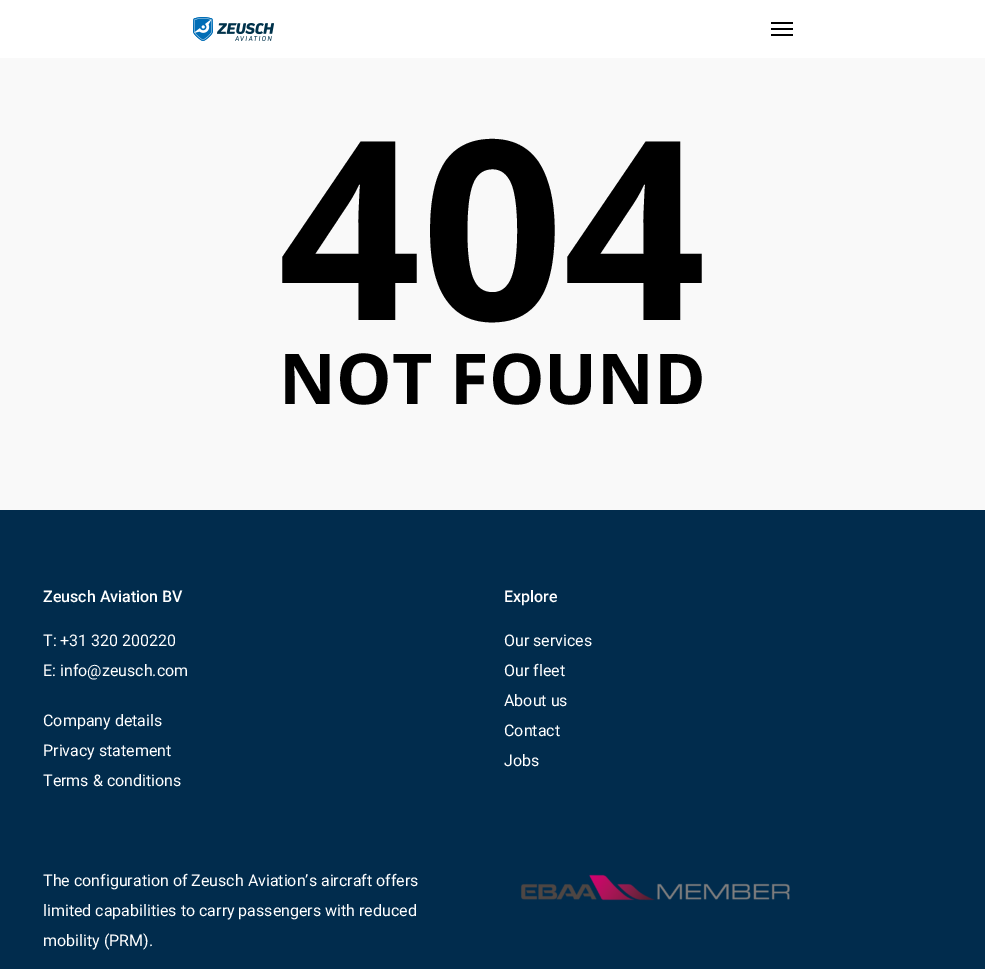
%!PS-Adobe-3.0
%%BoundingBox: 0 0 985 969
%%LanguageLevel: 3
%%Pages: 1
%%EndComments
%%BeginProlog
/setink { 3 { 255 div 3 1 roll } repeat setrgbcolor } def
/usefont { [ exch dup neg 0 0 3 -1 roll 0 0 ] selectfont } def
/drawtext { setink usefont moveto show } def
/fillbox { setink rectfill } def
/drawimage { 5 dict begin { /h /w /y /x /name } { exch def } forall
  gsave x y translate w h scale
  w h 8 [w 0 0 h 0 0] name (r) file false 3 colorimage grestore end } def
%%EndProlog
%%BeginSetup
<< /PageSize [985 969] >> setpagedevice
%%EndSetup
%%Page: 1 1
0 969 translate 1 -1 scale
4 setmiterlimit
0 0 985 969 1 44 77 fillbox
0 0 985 58 255 255 255 fillbox
(assets/img1.rgb) 193 17 81 24 drawimage
771 22 22 2 0 0 0 fillbox
771 34 22 2 0 0 0 fillbox
771 28 22 2 0 0 0 fillbox
0 58 985 452 249 249 249 fillbox
(404) 278 320 /OpenSans-Bold 250 0 0 0 drawtext
(NOT FOUND) 279 404 /OpenSans-Bold 70 0 0 0 drawtext
(Zeusch Aviation BV) 43 602 /Roboto-Medium 16 255 255 255 drawtext
(T: +31 320 200220) 43 646 /Roboto-Regular 16 255 255 255 drawtext
(E: info@zeusch.com) 43 676 /Roboto-Regular 16 255 255 255 drawtext
(Company details) 43 726 /Roboto-Regular 16 255 255 255 drawtext
(Privacy statement) 43 756 /Roboto-Regular 16 255 255 255 drawtext
(Terms & conditions) 43 786 /Roboto-Regular 16 255 255 255 drawtext
(Explore) 504 602 /Roboto-Medium 16 255 255 255 drawtext
(Our services) 504 646 /Roboto-Regular 16 255 255 255 drawtext
(Our fleet) 504 676 /Roboto-Regular 16 255 255 255 drawtext
(About us) 504 706 /Roboto-Regular 16 255 255 255 drawtext
(Contact) 504 736 /Roboto-Regular 16 255 255 255 drawtext
(Jobs) 504 766 /Roboto-Regular 16 255 255 255 drawtext
(The configuration of Zeusch Aviation’s aircraft offers) 43 886 /Roboto-Regular 16 255 255 255 drawtext
(limited capabilities to carry passengers with reduced) 43 916 /Roboto-Regular 16 255 255 255 drawtext
(mobility \(PRM\).) 43 946 /Roboto-Regular 16 255 255 255 drawtext
(assets/img2.rgb) 521 874 269 27 drawimage
showpage
%%EOF
